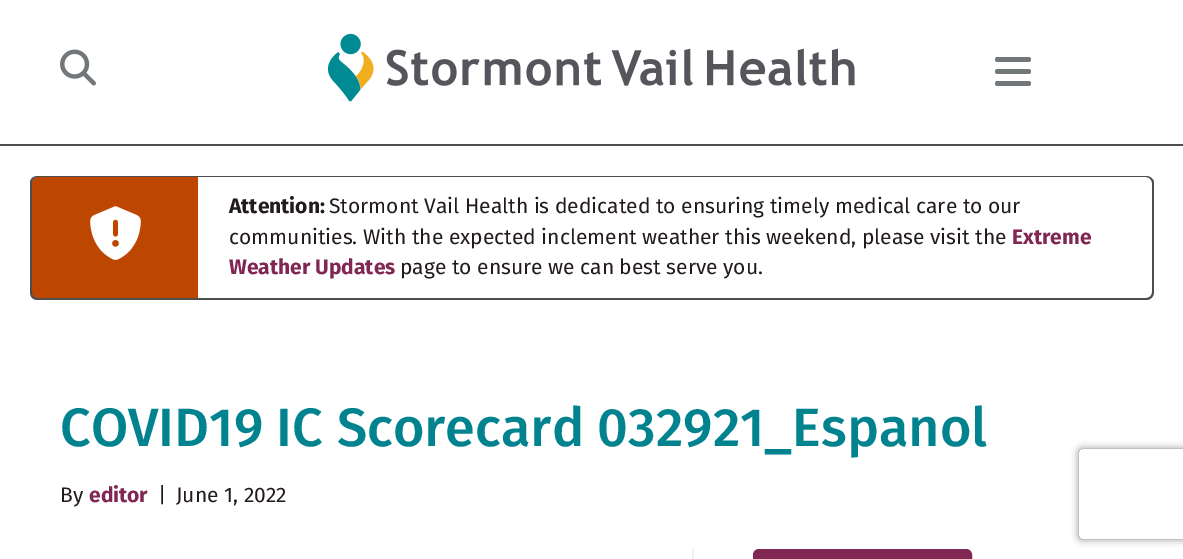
%!PS-Adobe-3.0
%%BoundingBox: 0 0 1183 559
%%LanguageLevel: 3
%%Pages: 1
%%EndComments
%%BeginProlog
/setink { 3 { 255 div 3 1 roll } repeat setrgbcolor } def
/usefont { [ exch dup neg 0 0 3 -1 roll 0 0 ] selectfont } def
/drawtext { setink usefont moveto show } def
/fillbox { setink rectfill } def
/setalpha { dup .setfillconstantalpha .setstrokeconstantalpha } def
/rrect { 5 dict begin { /r /h /w /y /x } { exch def } forall
  x r add y moveto x w add y 2 copy h add r arct x w add y h add x 1 index r arct
  x y h add x y r arct x y 2 copy exch w add exch r arct closepath end } def
/softshadow { 12 dict begin { /a /b /q /h /w /y /x } { exch def } forall gsave /was 0 def
  9 -2 -9 { dup b mul 4 div /e exch def 1 sub .425 mul 2.718 exch exp 1 add a .99 .min exch div /now exch def
    1 1 now sub 1 was sub div sub setalpha /was now def
    w h .min e 2 mul add 0 gt { x e sub y e sub w e 2 mul add h e 2 mul add
      q e add b .6 mul add w h .min 2 div e add .min 0 .max rrect fill } if } for grestore end } def
/drawimage { 5 dict begin { /h /w /y /x /name } { exch def } forall
  gsave x y translate w h scale
  w h 8 [w 0 0 h 0 0] name (r) file false 3 colorimage grestore end } def
%%EndProlog
%%BeginSetup
<< /PageSize [1183 559] /PageUsesTransparency true >> setpagedevice
%%EndSetup
%%Page: 1 1
0 .pushpdf14devicefilter
0 559 translate 1 -1 scale
4 setmiterlimit
0 0 1183 559 255 255 255 fillbox
0 144 1183 2 77 77 77 fillbox
(assets/img1.rgb) 60 49 36 37 drawimage
(assets/img2.rgb) 327 33 528 69 drawimage
114 119 122 setink
995 69 36 5 2.5 rrect fill
995 57 36 5 2.5 rrect fill
995 81 36 5 2.5 rrect fill
189 71 0 setink
38 177 moveto 198 177 lineto 198 299 lineto 38 299 lineto 34.5 299 32 296.5 32 293 curveto 32 183 lineto 32 179.5 34.5 177 38 177 curveto closepath fill
77 77 77 setink
38 176 moveto 198 176 lineto 198 300 lineto 38 300 lineto 33 300 30 297 30 292 curveto 30 183 lineto 30 179 33 176 38 176 curveto closepath 38 177 moveto 198 177 lineto 198 298 lineto 38 298 lineto 34 298 32 296 32 292 curveto 32 183 lineto 32 180 34 177 38 177 curveto closepath eofill
(assets/img3.rgb) 90 206 51 54 drawimage
198 176 moveto 1146 176 lineto 1150 176 1154 179 1154 183 curveto 1154 292 lineto 1154 297 1150 300 1146 300 curveto 198 300 lineto closepath 198 177 moveto 1146 177 lineto 1149 177 1152 180 1152 183 curveto 1152 292 lineto 1152 296 1149 298 1146 298 curveto 198 298 lineto closepath eofill
(Attention:) 229 213 /FiraSans-Bold 21 33 27 27 drawtext
(Stormont Vail Health is dedicated to ensuring timely medical care to our) 329 213 /FiraSans-Regular 21 33 27 27 drawtext
(communities. With the expected inclement weather this weekend, please visit the) 229 244 /FiraSans-Regular 21 33 27 27 drawtext
(Extreme) 1012 244 /FiraSans-Bold 21 128 39 84 drawtext
(Weather Updates) 229 274 /FiraSans-Bold 21 128 39 84 drawtext
(page to ensure we can best serve you.) 400 274 /FiraSans-Regular 21 33 27 27 drawtext
(COVID19 IC Scorecard 032921_Espanol) 60 446 /FiraSans-Medium 54 0 131 143 drawtext
(By) 60 502 /FiraSans-Regular 21 33 27 27 drawtext
(editor) 89 502 /FiraSans-Bold 21 128 39 84 drawtext
(|) 158 502 /FiraSans-Regular 21 33 27 27 drawtext
(June 1, 2022) 176 502 /FiraSans-Regular 21 33 27 27 drawtext
692 549 2 10 238 238 238 fillbox
128 39 84 setink
754 550 217 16 5 rrect gsave fill grestore
2 setlinewidth
stroke
gsave
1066 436 moveto 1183 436 lineto 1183 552 lineto 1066 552 lineto closepath 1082 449 moveto 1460 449 lineto 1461.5 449 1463 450.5 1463 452 curveto 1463 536 lineto 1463 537.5 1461.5 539 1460 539 curveto 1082 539 lineto 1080.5 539 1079 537.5 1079 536 curveto 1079 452 lineto 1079 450.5 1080.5 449 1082 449 curveto closepath eoclip newpath
128 128 128 setink
1079 449 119 90 3 4 1 softshadow
grestore
.poppdf14devicefilter showpage
%%EOF
